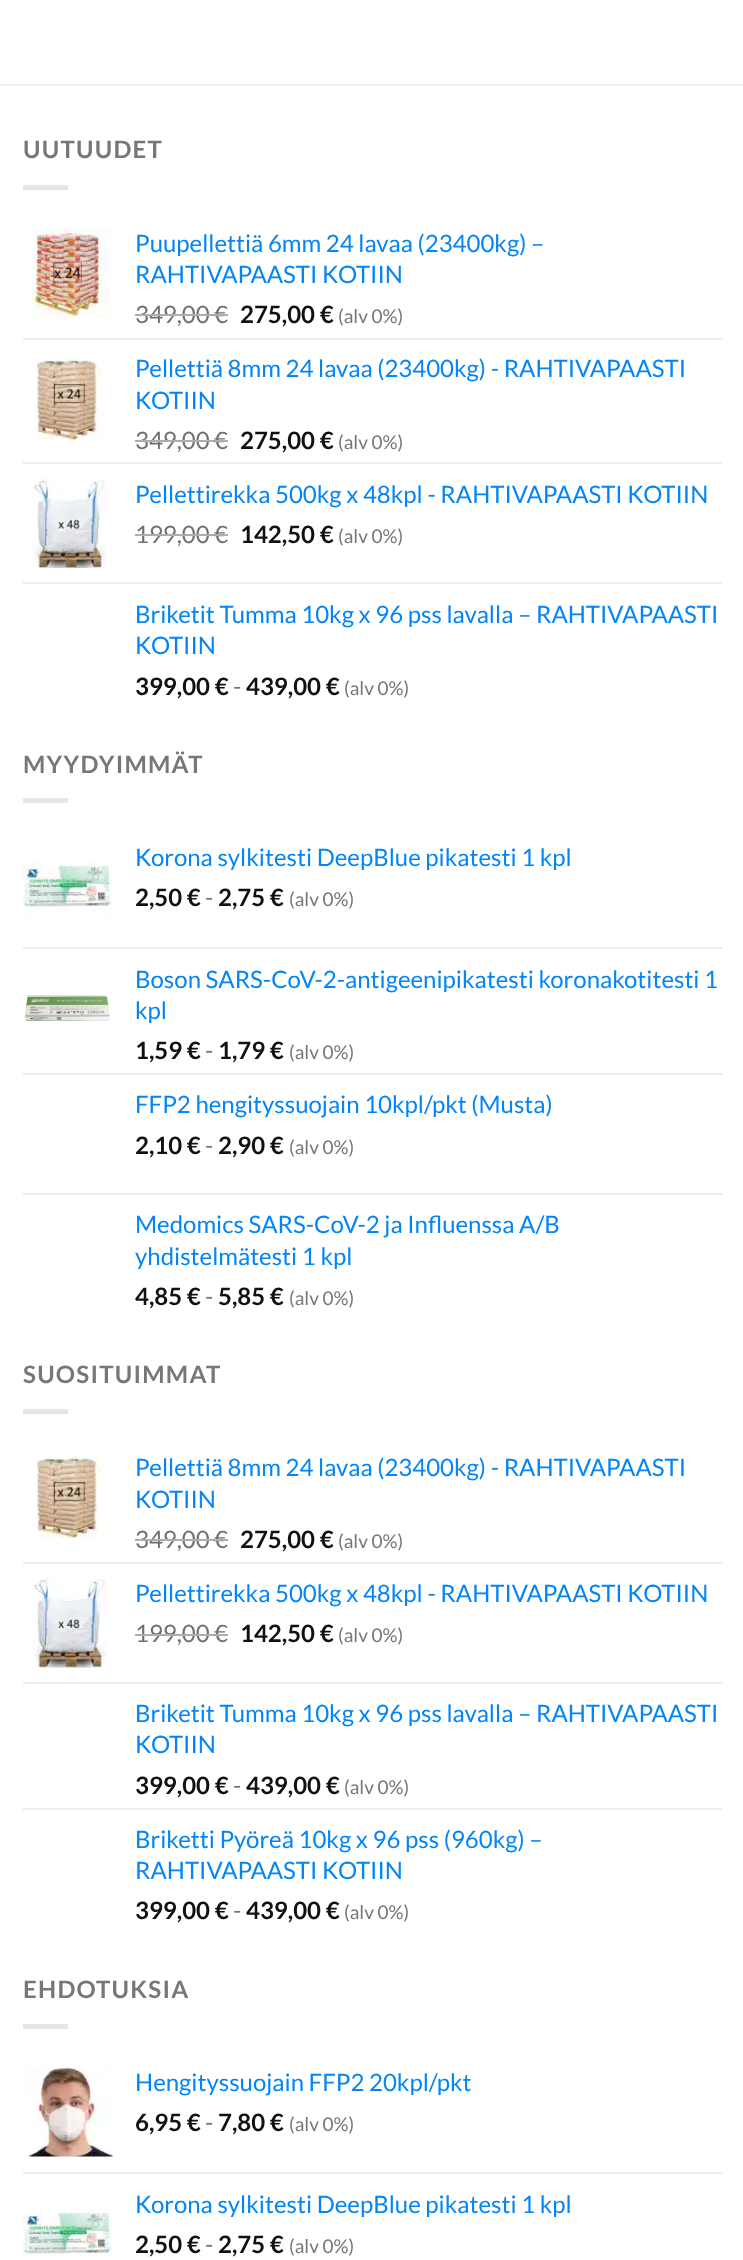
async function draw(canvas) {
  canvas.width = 743
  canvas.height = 2260
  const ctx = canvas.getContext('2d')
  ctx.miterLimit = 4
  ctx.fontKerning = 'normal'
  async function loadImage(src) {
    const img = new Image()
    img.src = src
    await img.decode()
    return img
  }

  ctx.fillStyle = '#fff'
  ctx.fillRect(0, 0, 743, 2260)
  ctx.fillStyle = '#f2f2f2'
  ctx.fillRect(0, 84, 743, 2)
  ctx.letterSpacing = '1.25px'
  ctx.font = 'bold 24px Lato'
  ctx.fillStyle = '#777'
  ctx.fillText('UUTUUDET', 23, 158)
  ctx.fillStyle = '#e6e6e6'
  ctx.fillRect(23, 185, 45, 5)
  ctx.drawImage(await loadImage('image0.png'), 31, 227, 80, 91)
  ctx.letterSpacing = '0px'
  ctx.font = '24px Lato'
  ctx.fillStyle = '#0385f6'
  ctx.fillText('Puupellettiä 6mm 24 lavaa (23400kg) –', 135, 252)
  ctx.fillText('RAHTIVAPAASTI KOTIIN', 135, 283)
  ctx.fillStyle = '#707070'
  ctx.fillText('349,00', 135, 323)
  ctx.fillStyle = '#adadad'
  ctx.fillRect(135, 314, 80, 2)
  ctx.fillStyle = '#707070'
  ctx.fillText('€', 214, 323)
  ctx.fillStyle = '#adadad'
  ctx.fillRect(215, 314, 13, 2)
  ctx.font = 'bold 24px Lato'
  ctx.fillStyle = '#111'
  ctx.fillText('275,00 €', 240, 323)
  ctx.font = '19px Lato'
  ctx.fillStyle = '#777'
  ctx.fillText('(alv 0%)', 338, 323)
  ctx.fillStyle = '#ececec'
  ctx.fillRect(23, 338, 699, 2)
  ctx.drawImage(await loadImage('image1.png'), 34, 358, 71, 83)
  ctx.font = '24px Lato'
  ctx.fillStyle = '#0385f6'
  ctx.fillText('Pellettiä 8mm 24 lavaa (23400kg) - RAHTIVAPAASTI', 135, 377)
  ctx.fillText('KOTIIN', 135, 409)
  ctx.fillStyle = '#707070'
  ctx.fillText('349,00', 135, 449)
  ctx.fillStyle = '#adadad'
  ctx.fillRect(135, 440, 80, 2)
  ctx.fillStyle = '#707070'
  ctx.fillText('€', 214, 449)
  ctx.fillStyle = '#adadad'
  ctx.fillRect(215, 440, 13, 2)
  ctx.font = 'bold 24px Lato'
  ctx.fillStyle = '#111'
  ctx.fillText('275,00 €', 240, 449)
  ctx.font = '19px Lato'
  ctx.fillStyle = '#777'
  ctx.fillText('(alv 0%)', 338, 449)
  ctx.fillStyle = '#ececec'
  ctx.fillRect(23, 462, 699, 2)
  ctx.drawImage(await loadImage('image2.png'), 32, 479, 75, 89)
  ctx.font = '24px Lato'
  ctx.fillStyle = '#0385f6'
  ctx.fillText('Pellettirekka 500kg x 48kpl - RAHTIVAPAASTI KOTIIN', 135, 503)
  ctx.fillStyle = '#707070'
  ctx.fillText('199,00', 135, 543)
  ctx.fillStyle = '#adadad'
  ctx.fillRect(135, 534, 80, 2)
  ctx.fillStyle = '#707070'
  ctx.fillText('€', 214, 543)
  ctx.fillStyle = '#adadad'
  ctx.fillRect(215, 534, 13, 2)
  ctx.font = 'bold 24px Lato'
  ctx.fillStyle = '#111'
  ctx.fillText('142,50 €', 240, 543)
  ctx.font = '19px Lato'
  ctx.fillStyle = '#777'
  ctx.fillText('(alv 0%)', 338, 543)
  ctx.fillStyle = '#ececec'
  ctx.fillRect(23, 582, 699, 2)
  ctx.font = '24px Lato'
  ctx.fillStyle = '#0385f6'
  ctx.fillText('Briketit Tumma 10kg x 96 pss lavalla – RAHTIVAPAASTI', 135, 623)
  ctx.fillText('KOTIIN', 135, 654)
  ctx.font = 'bold 24px Lato'
  ctx.fillStyle = '#111'
  ctx.fillText('399,00 €', 135, 695)
  ctx.font = '24px Lato'
  ctx.fillStyle = '#777'
  ctx.fillText('-', 233, 695)
  ctx.font = 'bold 24px Lato'
  ctx.fillStyle = '#111'
  ctx.fillText('439,00 €', 246, 695)
  ctx.font = '19px Lato'
  ctx.fillStyle = '#777'
  ctx.fillText('(alv 0%)', 344, 695)
  ctx.letterSpacing = '1.25px'
  ctx.font = 'bold 24px Lato'
  ctx.fillText('MYYDYIMMÄT', 23, 773)
  ctx.fillStyle = '#e6e6e6'
  ctx.fillRect(23, 798, 45, 5)
  ctx.letterSpacing = '0px'
  ctx.font = '24px Lato'
  ctx.fillStyle = '#0385f6'
  ctx.fillText('Korona sylkitesti DeepBlue pikatesti 1 kpl', 135, 866)
  ctx.drawImage(await loadImage('image3.png'), 22, 862, 90, 62)
  ctx.font = 'bold 24px Lato'
  ctx.fillStyle = '#111'
  ctx.fillText('2,50 €', 135, 906)
  ctx.font = '24px Lato'
  ctx.fillStyle = '#777'
  ctx.fillText('-', 205, 906)
  ctx.font = 'bold 24px Lato'
  ctx.fillStyle = '#111'
  ctx.fillText('2,75 €', 218, 906)
  ctx.font = '19px Lato'
  ctx.fillStyle = '#777'
  ctx.fillText('(alv 0%)', 289, 906)
  ctx.fillStyle = '#ececec'
  ctx.fillRect(23, 947, 699, 2)
  ctx.font = '24px Lato'
  ctx.fillStyle = '#0385f6'
  ctx.fillText('Boson SARS-CoV-2-antigeenipikatesti koronakotitesti 1', 135, 988)
  ctx.drawImage(await loadImage('image4.png'), 24, 995, 87, 26)
  ctx.fillText('kpl', 135, 1019)
  ctx.font = 'bold 24px Lato'
  ctx.fillStyle = '#111'
  ctx.fillText('1,59 €', 135, 1059)
  ctx.font = '24px Lato'
  ctx.fillStyle = '#777'
  ctx.fillText('-', 205, 1059)
  ctx.font = 'bold 24px Lato'
  ctx.fillStyle = '#111'
  ctx.fillText('1,79 €', 218, 1059)
  ctx.font = '19px Lato'
  ctx.fillStyle = '#777'
  ctx.fillText('(alv 0%)', 289, 1059)
  ctx.fillStyle = '#ececec'
  ctx.fillRect(23, 1073, 699, 2)
  ctx.font = '24px Lato'
  ctx.fillStyle = '#0385f6'
  ctx.fillText('FFP2 hengityssuojain 10kpl/pkt (Musta)', 135, 1113)
  ctx.font = 'bold 24px Lato'
  ctx.fillStyle = '#111'
  ctx.fillText('2,10 €', 135, 1154)
  ctx.font = '24px Lato'
  ctx.fillStyle = '#777'
  ctx.fillText('-', 205, 1154)
  ctx.font = 'bold 24px Lato'
  ctx.fillStyle = '#111'
  ctx.fillText('2,90 €', 218, 1154)
  ctx.font = '19px Lato'
  ctx.fillStyle = '#777'
  ctx.fillText('(alv 0%)', 289, 1154)
  ctx.fillStyle = '#ececec'
  ctx.fillRect(23, 1193, 699, 2)
  ctx.font = '24px Lato'
  ctx.fillStyle = '#0385f6'
  ctx.fillText('Medomics SARS-CoV-2 ja Influenssa A/B', 135, 1233)
  ctx.fillText('yhdistelmätesti 1 kpl', 135, 1265)
  ctx.font = 'bold 24px Lato'
  ctx.fillStyle = '#111'
  ctx.fillText('4,85 €', 135, 1305)
  ctx.font = '24px Lato'
  ctx.fillStyle = '#777'
  ctx.fillText('-', 205, 1305)
  ctx.font = 'bold 24px Lato'
  ctx.fillStyle = '#111'
  ctx.fillText('5,85 €', 218, 1305)
  ctx.font = '19px Lato'
  ctx.fillStyle = '#777'
  ctx.fillText('(alv 0%)', 289, 1305)
  ctx.letterSpacing = '1.25px'
  ctx.font = 'bold 24px Lato'
  ctx.fillText('SUOSITUIMMAT', 23, 1383)
  ctx.fillStyle = '#e6e6e6'
  ctx.fillRect(23, 1409, 45, 5)
  ctx.drawImage(await loadImage('image5.png'), 34, 1456, 71, 83)
  ctx.letterSpacing = '0px'
  ctx.font = '24px Lato'
  ctx.fillStyle = '#0385f6'
  ctx.fillText('Pellettiä 8mm 24 lavaa (23400kg) - RAHTIVAPAASTI', 135, 1476)
  ctx.fillText('KOTIIN', 135, 1508)
  ctx.fillStyle = '#707070'
  ctx.fillText('349,00', 135, 1548)
  ctx.fillStyle = '#adadad'
  ctx.fillRect(135, 1539, 80, 2)
  ctx.fillStyle = '#707070'
  ctx.fillText('€', 214, 1548)
  ctx.fillStyle = '#adadad'
  ctx.fillRect(215, 1539, 13, 2)
  ctx.font = 'bold 24px Lato'
  ctx.fillStyle = '#111'
  ctx.fillText('275,00 €', 240, 1548)
  ctx.font = '19px Lato'
  ctx.fillStyle = '#777'
  ctx.fillText('(alv 0%)', 338, 1548)
  ctx.fillStyle = '#ececec'
  ctx.fillRect(23, 1562, 699, 2)
  ctx.drawImage(await loadImage('image6.png'), 32, 1578, 76, 90)
  ctx.font = '24px Lato'
  ctx.fillStyle = '#0385f6'
  ctx.fillText('Pellettirekka 500kg x 48kpl - RAHTIVAPAASTI KOTIIN', 135, 1602)
  ctx.fillStyle = '#707070'
  ctx.fillText('199,00', 135, 1642)
  ctx.fillStyle = '#adadad'
  ctx.fillRect(135, 1634, 80, 2)
  ctx.fillStyle = '#707070'
  ctx.fillText('€', 214, 1642)
  ctx.fillStyle = '#adadad'
  ctx.fillRect(215, 1634, 13, 2)
  ctx.font = 'bold 24px Lato'
  ctx.fillStyle = '#111'
  ctx.fillText('142,50 €', 240, 1642)
  ctx.font = '19px Lato'
  ctx.fillStyle = '#777'
  ctx.fillText('(alv 0%)', 338, 1642)
  ctx.fillStyle = '#ececec'
  ctx.fillRect(23, 1682, 699, 2)
  ctx.font = '24px Lato'
  ctx.fillStyle = '#0385f6'
  ctx.fillText('Briketit Tumma 10kg x 96 pss lavalla – RAHTIVAPAASTI', 135, 1722)
  ctx.fillText('KOTIIN', 135, 1753)
  ctx.font = 'bold 24px Lato'
  ctx.fillStyle = '#111'
  ctx.fillText('399,00 €', 135, 1794)
  ctx.font = '24px Lato'
  ctx.fillStyle = '#777'
  ctx.fillText('-', 233, 1794)
  ctx.font = 'bold 24px Lato'
  ctx.fillStyle = '#111'
  ctx.fillText('439,00 €', 246, 1794)
  ctx.font = '19px Lato'
  ctx.fillStyle = '#777'
  ctx.fillText('(alv 0%)', 344, 1794)
  ctx.fillStyle = '#ececec'
  ctx.fillRect(23, 1808, 699, 2)
  ctx.font = '24px Lato'
  ctx.fillStyle = '#0385f6'
  ctx.fillText('Briketti Pyöreä 10kg x 96 pss (960kg) –', 135, 1848)
  ctx.fillText('RAHTIVAPAASTI KOTIIN', 135, 1879)
  ctx.font = 'bold 24px Lato'
  ctx.fillStyle = '#111'
  ctx.fillText('399,00 €', 135, 1919)
  ctx.font = '24px Lato'
  ctx.fillStyle = '#777'
  ctx.fillText('-', 233, 1919)
  ctx.font = 'bold 24px Lato'
  ctx.fillStyle = '#111'
  ctx.fillText('439,00 €', 246, 1919)
  ctx.font = '19px Lato'
  ctx.fillStyle = '#777'
  ctx.fillText('(alv 0%)', 344, 1919)
  ctx.letterSpacing = '1.25px'
  ctx.font = 'bold 24px Lato'
  ctx.fillText('EHDOTUKSIA', 23, 1998)
  ctx.fillStyle = '#e6e6e6'
  ctx.fillRect(23, 2024, 45, 5)
  ctx.drawImage(await loadImage('image7.png'), 26, 2066, 87, 91)
  ctx.letterSpacing = '0px'
  ctx.font = '24px Lato'
  ctx.fillStyle = '#0385f6'
  ctx.fillText('Hengityssuojain FFP2 20kpl/pkt', 135, 2091)
  ctx.font = 'bold 24px Lato'
  ctx.fillStyle = '#111'
  ctx.fillText('6,95 €', 135, 2131)
  ctx.font = '24px Lato'
  ctx.fillStyle = '#777'
  ctx.fillText('-', 205, 2131)
  ctx.font = 'bold 24px Lato'
  ctx.fillStyle = '#111'
  ctx.fillText('7,80 €', 218, 2131)
  ctx.font = '19px Lato'
  ctx.fillStyle = '#777'
  ctx.fillText('(alv 0%)', 289, 2131)
  ctx.fillStyle = '#ececec'
  ctx.fillRect(23, 2172, 699, 2)
  ctx.font = '24px Lato'
  ctx.fillStyle = '#0385f6'
  ctx.fillText('Korona sylkitesti DeepBlue pikatesti 1 kpl', 135, 2213)
  ctx.drawImage(await loadImage('image8.png'), 22, 2209, 90, 48)
  ctx.font = 'bold 24px Lato'
  ctx.fillStyle = '#111'
  ctx.fillText('2,50 €', 135, 2253)
  ctx.font = '24px Lato'
  ctx.fillStyle = '#777'
  ctx.fillText('-', 205, 2253)
  ctx.font = 'bold 24px Lato'
  ctx.fillStyle = '#111'
  ctx.fillText('2,75 €', 218, 2253)
  ctx.font = '19px Lato'
  ctx.fillStyle = '#777'
  ctx.fillText('(alv 0%)', 289, 2253)
}

draw(document.querySelector('canvas'))
